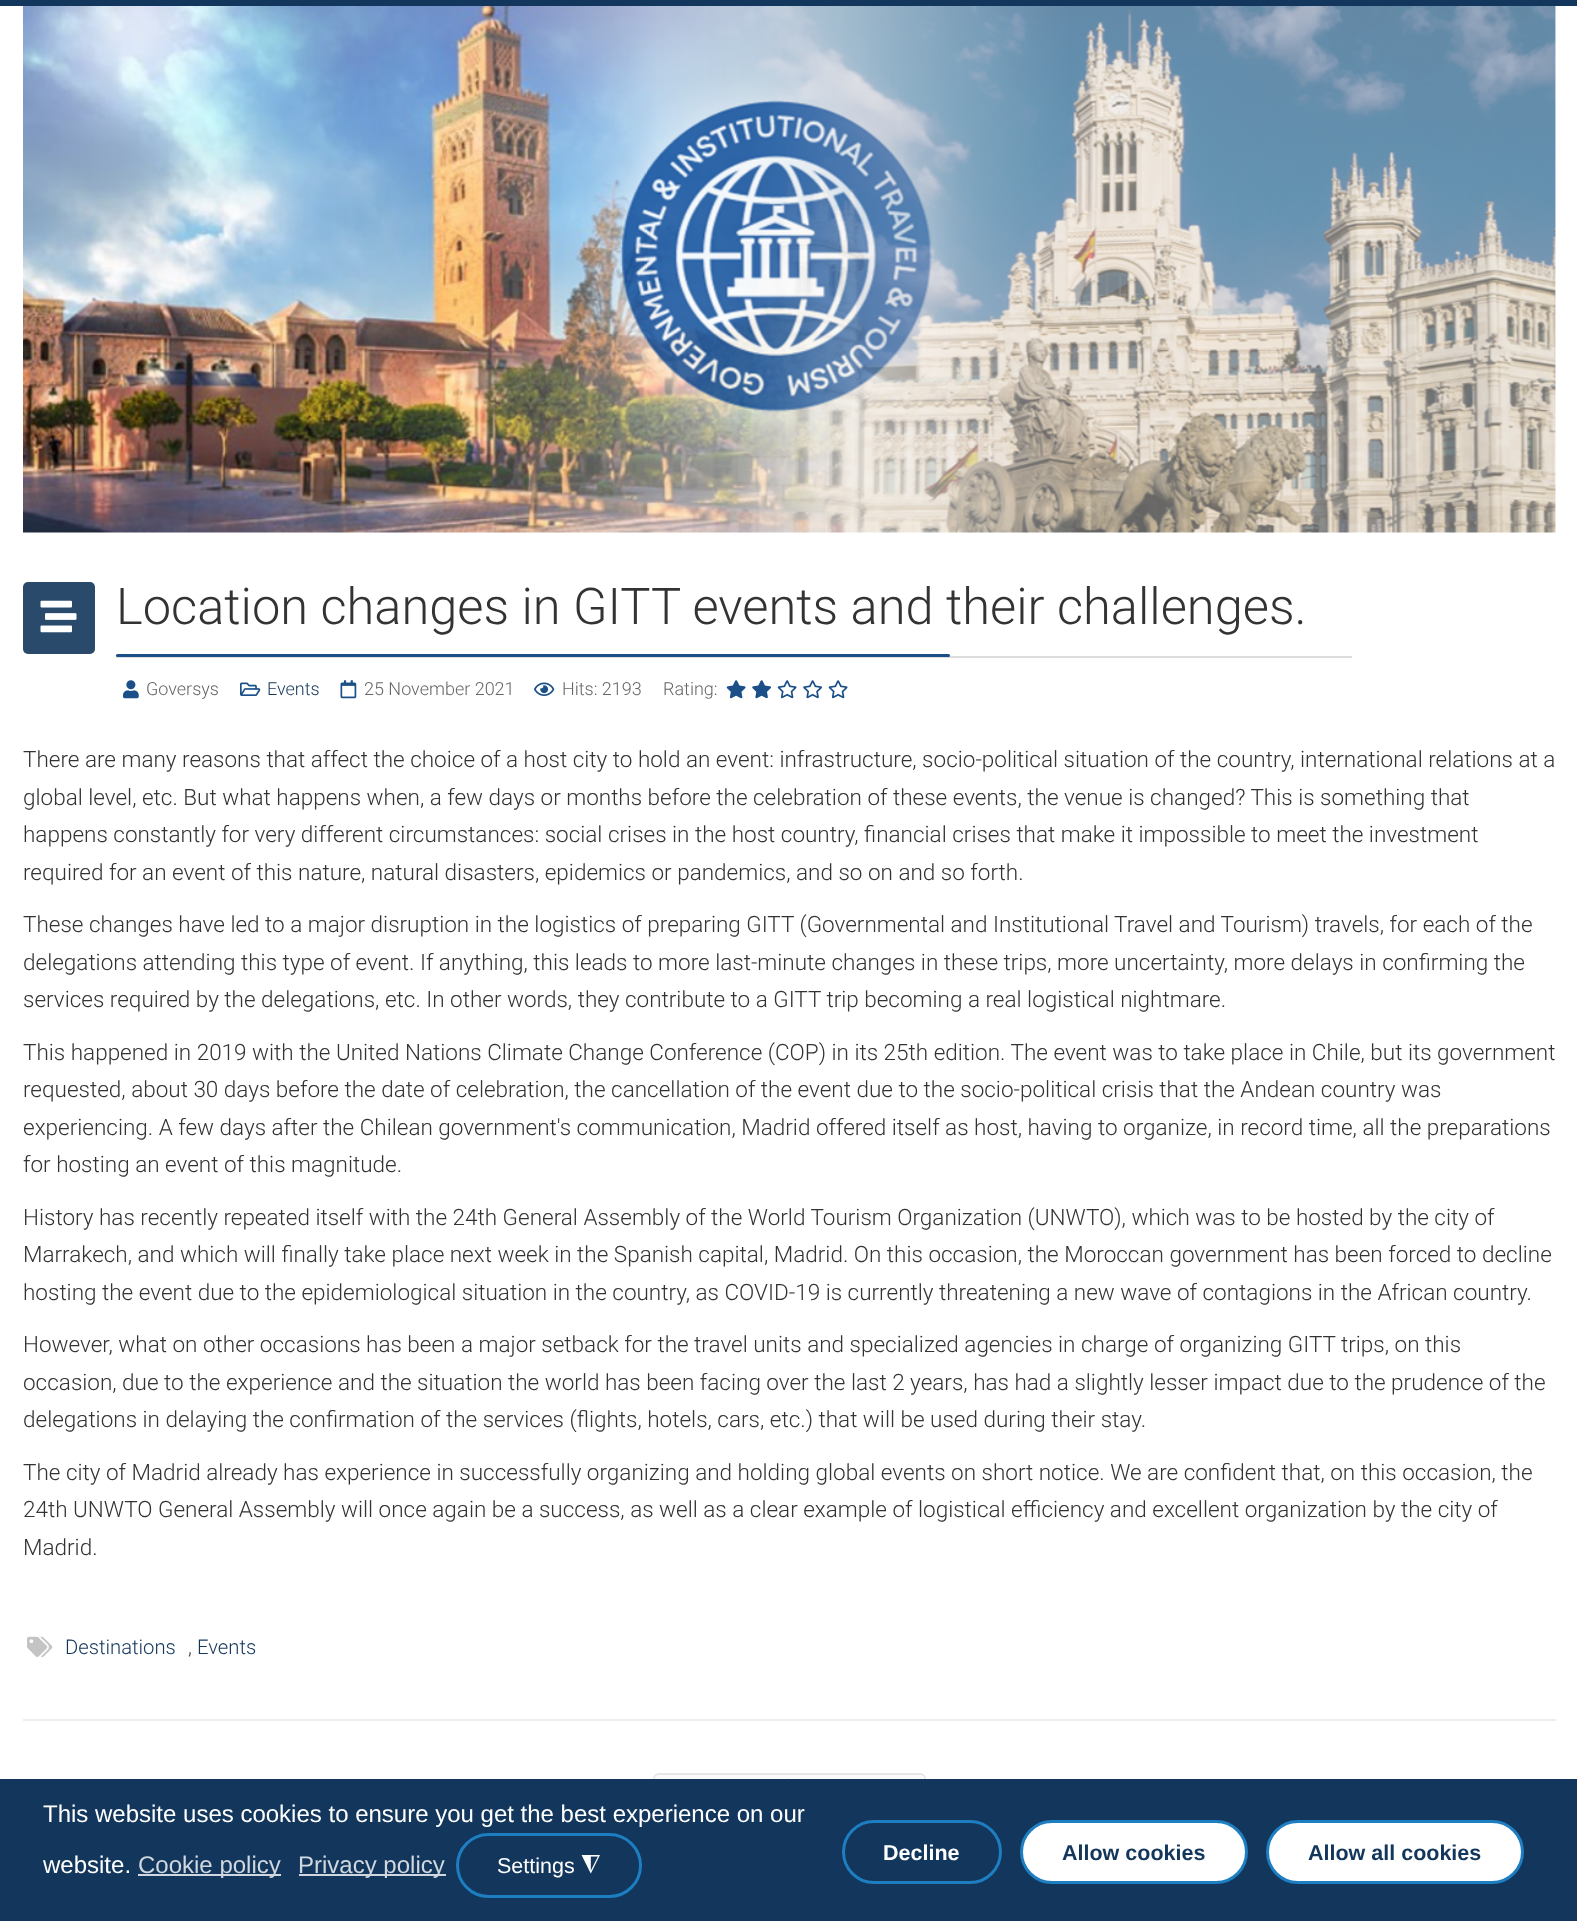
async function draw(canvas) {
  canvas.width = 1577
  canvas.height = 1921
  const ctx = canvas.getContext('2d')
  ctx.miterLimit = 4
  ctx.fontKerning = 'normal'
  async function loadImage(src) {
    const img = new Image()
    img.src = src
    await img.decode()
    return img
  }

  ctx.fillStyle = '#fff'
  ctx.fillRect(0, 0, 1577, 1921)
  ctx.fillStyle = '#12365c'
  ctx.fillRect(0, 0, 1577, 6)
  ctx.drawImage(await loadImage('image0.png'), 23, 6, 1533, 527)
  ctx.fillStyle = '#2a4a6c'
  ctx.beginPath()
  ctx.roundRect(23, 582, 72, 72, 5)
  ctx.fill()
  ctx.drawImage(await loadImage('image1.png'), 40, 600, 37, 33)
  ctx.fillStyle = '#ddd'
  ctx.fillRect(116, 656, 1236, 2)
  ctx.font = '300 50.6px Roboto'
  ctx.fillStyle = '#333'
  ctx.fillText('Location changes in GITT events and their challenges.', 116, 624)
  ctx.fillStyle = '#1a4f87'
  ctx.beginPath()
  ctx.roundRect(116, 654, 834, 3, 1.5)
  ctx.fill()
  ctx.drawImage(await loadImage('image2.png'), 123, 680, 16, 19)
  ctx.font = '300 18px Roboto'
  ctx.fillStyle = '#666'
  ctx.fillText('Goversys', 146, 695)
  ctx.drawImage(await loadImage('image3.png'), 240, 682, 21, 14)
  ctx.fillStyle = '#12365c'
  ctx.fillText('Events', 267, 695)
  ctx.drawImage(await loadImage('image4.png'), 340, 680, 17, 19)
  ctx.fillStyle = '#666'
  ctx.fillText('25 November 2021', 364, 695)
  ctx.drawImage(await loadImage('image5.png'), 534, 682, 21, 14)
  ctx.fillText('Hits: 2193', 562, 695)
  ctx.fillText('Rating:', 663, 695)
  ctx.drawImage(await loadImage('image6.png'), 726, 680, 20, 19)
  ctx.drawImage(await loadImage('image7.png'), 752, 680, 19, 19)
  ctx.drawImage(await loadImage('image8.png'), 777, 680, 20, 19)
  ctx.drawImage(await loadImage('image9.png'), 803, 680, 19, 19)
  ctx.drawImage(await loadImage('image8.png'), 828, 680, 20, 19)
  ctx.font = '300 22.5px Roboto'
  ctx.fillStyle = '#333'
  ctx.fillText('There are many reasons that affect the choice of a host city to hold an event: infrastructure, socio-political situation of the country, international relations at a', 23, 767)
  ctx.fillText('global level, etc. But what happens when, a few days or months before the celebration of these events, the venue is changed? This is something that', 23, 805)
  ctx.fillText('happens constantly for very different circumstances: social crises in the host country, financial crises that make it impossible to meet the investment', 23, 842)
  ctx.fillText('required for an event of this nature, natural disasters, epidemics or pandemics, and so on and so forth.', 23, 880)
  ctx.fillText('These changes have led to a major disruption in the logistics of preparing GITT (Governmental and Institutional Travel and Tourism) travels, for each of the', 23, 932)
  ctx.fillText('delegations attending this type of event. If anything, this leads to more last-minute changes in these trips, more uncertainty, more delays in confirming the', 23, 970)
  ctx.fillText('services required by the delegations, etc. In other words, they contribute to a GITT trip becoming a real logistical nightmare.', 23, 1007)
  ctx.fillText('This happened in 2019 with the United Nations Climate Change Conference (COP) in its 25th edition. The event was to take place in Chile, but its government', 23, 1060)
  ctx.fillText('requested, about 30 days before the date of celebration, the cancellation of the event due to the socio-political crisis that the Andean country was', 23, 1097)
  ctx.fillText('experiencing. A few days after the Chilean government\'s communication, Madrid offered itself as host, having to organize, in record time, all the preparations', 23, 1135)
  ctx.fillText('for hosting an event of this magnitude.', 23, 1172)
  ctx.fillText('History has recently repeated itself with the 24th General Assembly of the World Tourism Organization (UNWTO), which was to be hosted by the city of', 23, 1225)
  ctx.fillText('Marrakech, and which will finally take place next week in the Spanish capital, Madrid. On this occasion, the Moroccan government has been forced to decline', 23, 1262)
  ctx.fillText('hosting the event due to the epidemiological situation in the country, as COVID-19 is currently threatening a new wave of contagions in the African country.', 23, 1300)
  ctx.fillText('However, what on other occasions has been a major setback for the travel units and specialized agencies in charge of organizing GITT trips, on this', 23, 1352)
  ctx.fillText('occasion, due to the experience and the situation the world has been facing over the last 2 years, has had a slightly lesser impact due to the prudence of the', 23, 1390)
  ctx.fillText('delegations in delaying the confirmation of the services (flights, hotels, cars, etc.) that will be used during their stay.', 23, 1427)
  ctx.fillText('The city of Madrid already has experience in successfully organizing and holding global events on short notice. We are confident that, on this occasion, the', 23, 1480)
  ctx.fillText('24th UNWTO General Assembly will once again be a success, as well as a clear example of logistical efficiency and excellent organization by the city of', 23, 1517)
  ctx.fillText('Madrid.', 23, 1555)
  ctx.drawImage(await loadImage('image10.png'), 27, 1636, 26, 21)
  ctx.font = '300 20.25px Roboto'
  ctx.fillStyle = '#12365c'
  ctx.fillText('Destinations', 65, 1654)
  ctx.fillStyle = '#333'
  ctx.fillText(',', 188, 1654)
  ctx.fillStyle = '#12365c'
  ctx.fillText('Events', 197, 1654)
  ctx.fillStyle = '#eee'
  ctx.fillRect(23, 1719, 1533, 2)
  ctx.beginPath()
  ctx.roundRect(654, 1774, 271, 76, 5)
  ctx.strokeStyle = '#e6e6e6'
  ctx.lineWidth = 2
  ctx.stroke()
  ctx.fillStyle = '#e6e6e6'
  ctx.fillRect(788, 1778, 1, 1)
  ctx.fillStyle = '#fafafa'
  ctx.beginPath()
  ctx.roundRect(654, 1775, 134, 75, [6, 0, 0, 6])
  ctx.fill()
  ctx.beginPath()
  ctx.roundRect(789, 1775, 135, 75, [0, 6, 6, 0])
  ctx.fill()
  ctx.fillStyle = '#12365c'
  ctx.fillRect(0, 1779, 1577, 142)
  ctx.font = '24px Liberation Sans'
  ctx.fillStyle = '#fff'
  ctx.fillText('This website uses cookies to ensure you get the best experience on our', 43, 1822)
  ctx.fillText('website.', 43, 1873)
  ctx.fillStyle = '#d0d7de'
  ctx.fillRect(138, 1874, 143, 2)
  ctx.fillText('Cookie policy', 138, 1873)
  ctx.fillRect(299, 1874, 147, 2)
  ctx.fillText('Privacy policy', 298, 1873)
  ctx.beginPath()
  ctx.roundRect(457.5, 1834.5, 183, 62, 31)
  ctx.strokeStyle = '#1e7ec2'
  ctx.lineWidth = 3
  ctx.stroke()
  ctx.font = '21.5px Liberation Sans'
  ctx.fillStyle = '#fff'
  ctx.fillText('Settings', 497, 1873)
  ctx.font = '24px DejaVu Sans'
  ctx.save()
  ctx.translate(600, 1858)
  ctx.rotate(180 * Math.PI / 180)
  ctx.fillText('◮', 0, 0)
  ctx.restore()
  ctx.beginPath()
  ctx.roundRect(843.5, 1821.5, 157, 61, 30.5)
  ctx.stroke()
  ctx.font = 'bold 21.5px Liberation Sans'
  ctx.fillText('Decline', 883, 1860)
  ctx.beginPath()
  ctx.roundRect(1021.5, 1821.5, 225, 61, 30.5)
  ctx.fill()
  ctx.stroke()
  ctx.fillStyle = '#12365c'
  ctx.fillText('Allow cookies', 1062, 1860)
  ctx.fillStyle = '#fff'
  ctx.beginPath()
  ctx.roundRect(1267.5, 1821.5, 255, 61, 30.5)
  ctx.fill()
  ctx.stroke()
  ctx.fillStyle = '#12365c'
  ctx.fillText('Allow all cookies', 1308, 1860)
}

draw(document.querySelector('canvas'))
